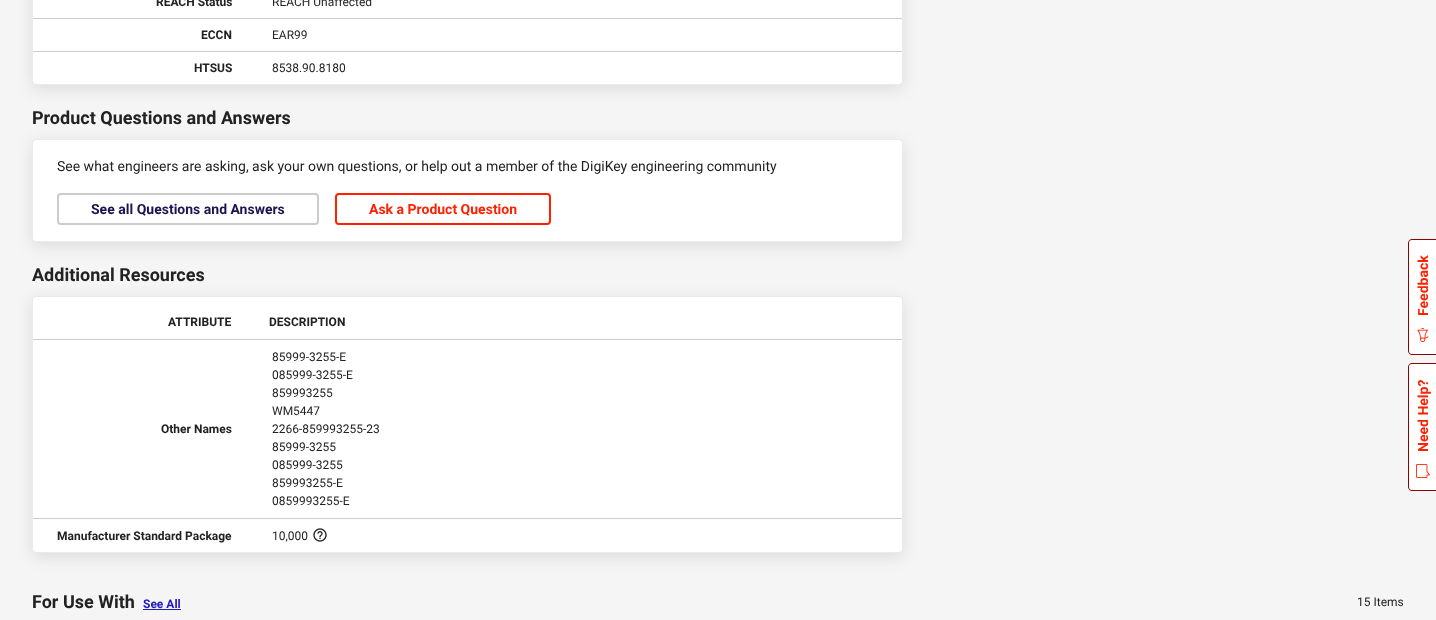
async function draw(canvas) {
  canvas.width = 1436
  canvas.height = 620
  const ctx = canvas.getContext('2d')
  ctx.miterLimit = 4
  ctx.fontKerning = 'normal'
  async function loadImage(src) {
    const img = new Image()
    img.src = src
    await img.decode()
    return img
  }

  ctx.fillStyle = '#f5f5f5'
  ctx.fillRect(0, 0, 1436, 620)
  ctx.fillStyle = '#0000001a'
  ctx.filter = 'blur(8px)'
  ctx.beginPath()
  ctx.roundRect(32, -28, 871, 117, 4)
  ctx.fill()
  ctx.filter = 'none'
  ctx.fillStyle = '#fff'
  ctx.beginPath()
  ctx.roundRect(32.5, -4.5, 870, 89, 3.5)
  ctx.fill()
  ctx.strokeStyle = '#eaeaea'
  ctx.stroke()
  ctx.fillStyle = '#ccc'
  ctx.fillRect(33, 18, 869, 1)
  ctx.font = 'bold 12px Roboto'
  ctx.fillStyle = '#222'
  ctx.fillText('REACH Status', 156, 6)
  ctx.font = '12px Roboto'
  ctx.fillText('REACH Unaffected', 272, 6)
  ctx.fillStyle = '#ccc'
  ctx.fillRect(33, 51, 869, 1)
  ctx.font = 'bold 12px Roboto'
  ctx.fillStyle = '#222'
  ctx.fillText('ECCN', 201, 39)
  ctx.font = '12px Roboto'
  ctx.fillText('EAR99', 272, 39)
  ctx.font = 'bold 12px Roboto'
  ctx.fillText('HTSUS', 194, 72)
  ctx.font = '12px Roboto'
  ctx.fillText('8538.90.8180', 272, 72)
  ctx.fillStyle = '#0000001a'
  ctx.filter = 'blur(8px)'
  ctx.beginPath()
  ctx.roundRect(32, 143, 871, 103, 4)
  ctx.fill()
  ctx.filter = 'none'
  ctx.font = 'bold 18px Roboto'
  ctx.fillStyle = '#222'
  ctx.fillText('Product Questions and Answers', 32, 124)
  ctx.fillStyle = '#fff'
  ctx.beginPath()
  ctx.roundRect(32.5, 139.5, 870, 102, 3.5)
  ctx.fill()
  ctx.stroke()
  ctx.font = '14px Roboto'
  ctx.fillStyle = '#222'
  ctx.fillText('See what engineers are asking, ask your own questions, or help out a member of the DigiKey engineering community', 57, 171)
  ctx.beginPath()
  ctx.roundRect(58, 194, 260, 30, 3)
  ctx.strokeStyle = '#ccc'
  ctx.lineWidth = 2
  ctx.stroke()
  ctx.font = 'bold 14px Roboto'
  ctx.fillStyle = '#1a1552'
  ctx.fillText('See all Questions and Answers', 91, 214)
  ctx.beginPath()
  ctx.roundRect(336, 194, 214, 30, 3)
  ctx.strokeStyle = '#ff2100'
  ctx.stroke()
  ctx.fillStyle = '#ff2100'
  ctx.fillText('Ask a Product Question', 369, 214)
  ctx.fillStyle = '#0000001a'
  ctx.filter = 'blur(8px)'
  ctx.beginPath()
  ctx.roundRect(32, 300, 871, 257, 4)
  ctx.fill()
  ctx.filter = 'none'
  ctx.font = 'bold 18px Roboto'
  ctx.fillStyle = '#222'
  ctx.fillText('Additional Resources', 32, 281)
  ctx.fillStyle = '#fff'
  ctx.beginPath()
  ctx.roundRect(32.5, 296.5, 870, 256, 3.5)
  ctx.fill()
  ctx.strokeStyle = '#eaeaea'
  ctx.lineWidth = 1
  ctx.stroke()
  ctx.font = 'bold 12px Roboto'
  ctx.fillStyle = '#222'
  ctx.fillText('ATTRIBUTE', 168, 326)
  ctx.fillStyle = '#ccc'
  ctx.fillRect(33, 339, 869, 1)
  ctx.fillStyle = '#222'
  ctx.fillText('DESCRIPTION', 269, 326)
  ctx.fillStyle = '#ccc'
  ctx.fillRect(33, 518, 869, 1)
  ctx.fillStyle = '#222'
  ctx.fillText('Other Names', 161, 433)
  ctx.font = '12px Roboto'
  ctx.fillText('85999-3255-E', 272, 361)
  ctx.fillText('085999-3255-E', 272, 379)
  ctx.fillText('859993255', 272, 397)
  ctx.fillText('WM5447', 272, 415)
  ctx.fillText('2266-859993255-23', 272, 433)
  ctx.fillText('85999-3255', 272, 451)
  ctx.fillText('085999-3255', 272, 469)
  ctx.fillText('859993255-E', 272, 487)
  ctx.fillText('0859993255-E', 272, 505)
  ctx.font = 'bold 12px Roboto'
  ctx.fillText('Manufacturer Standard Package', 57, 540)
  ctx.font = '12px Roboto'
  ctx.fillText('10,000', 272, 540)
  ctx.drawImage(await loadImage('image0.png'), 313, 528, 14, 14)
  ctx.font = 'bold 18px Roboto'
  ctx.fillText('For Use With', 32, 608)
  ctx.font = 'bold 12px Roboto'
  ctx.fillStyle = '#221abb'
  ctx.fillText('See All', 143, 608)
  ctx.fillRect(143, 609, 38, 1)
  ctx.font = '12px Roboto'
  ctx.fillStyle = '#222'
  ctx.fillText('15 Items', 1357, 606)
  ctx.fillStyle = '#fff'
  ctx.beginPath()
  ctx.moveTo(1408, 351)
  ctx.lineTo(1408, 243)
  ctx.bezierCurveTo(1408, 241, 1410, 239, 1412, 239)
  ctx.lineTo(1436, 239)
  ctx.lineTo(1436, 355)
  ctx.lineTo(1412, 355)
  ctx.bezierCurveTo(1410, 355, 1408, 353, 1408, 351)
  ctx.closePath()
  ctx.fill()
  ctx.fillStyle = '#8b0000'
  ctx.beginPath()
  ctx.moveTo(1408, 351)
  ctx.lineTo(1408, 243)
  ctx.bezierCurveTo(1408, 241, 1410, 239, 1412, 239)
  ctx.lineTo(1436, 239)
  ctx.lineTo(1436, 355)
  ctx.lineTo(1412, 355)
  ctx.bezierCurveTo(1410, 355, 1408, 353, 1408, 351)
  ctx.closePath()
  ctx.moveTo(1409, 351)
  ctx.lineTo(1409, 243)
  ctx.bezierCurveTo(1409, 241, 1410, 240, 1412, 240)
  ctx.lineTo(1436, 240)
  ctx.lineTo(1436, 354)
  ctx.lineTo(1412, 354)
  ctx.bezierCurveTo(1410, 354, 1409, 353, 1409, 351)
  ctx.closePath()
  ctx.fill('evenodd')
  ctx.font = 'bold 14px Roboto'
  ctx.fillStyle = '#ff2100'
  ctx.save()
  ctx.translate(1428, 316)
  ctx.rotate(-90 * Math.PI / 180)
  ctx.fillText('Feedback', 0, 0)
  ctx.restore()
  ctx.drawImage(await loadImage('image1.png'), 1417, 328, 12, 14)
  ctx.fillStyle = '#fff'
  ctx.beginPath()
  ctx.moveTo(1408, 487)
  ctx.lineTo(1408, 367)
  ctx.bezierCurveTo(1408, 365, 1410, 363, 1412, 363)
  ctx.lineTo(1436, 363)
  ctx.lineTo(1436, 491)
  ctx.lineTo(1412, 491)
  ctx.bezierCurveTo(1410, 491, 1408, 489, 1408, 487)
  ctx.closePath()
  ctx.fill()
  ctx.fillStyle = '#8b0000'
  ctx.beginPath()
  ctx.moveTo(1408, 487)
  ctx.lineTo(1408, 367)
  ctx.bezierCurveTo(1408, 365, 1410, 363, 1412, 363)
  ctx.lineTo(1436, 363)
  ctx.lineTo(1436, 491)
  ctx.lineTo(1412, 491)
  ctx.bezierCurveTo(1410, 491, 1408, 489, 1408, 487)
  ctx.closePath()
  ctx.moveTo(1409, 487)
  ctx.lineTo(1409, 367)
  ctx.bezierCurveTo(1409, 365, 1410, 364, 1412, 364)
  ctx.lineTo(1436, 364)
  ctx.lineTo(1436, 490)
  ctx.lineTo(1412, 490)
  ctx.bezierCurveTo(1410, 490, 1409, 489, 1409, 487)
  ctx.closePath()
  ctx.fill('evenodd')
  ctx.fillStyle = '#ff2100'
  ctx.save()
  ctx.translate(1428, 452)
  ctx.rotate(-90 * Math.PI / 180)
  ctx.fillText('Need Help?', 0, 0)
  ctx.restore()
  ctx.drawImage(await loadImage('image2.png'), 1416, 464, 14, 14)
}

draw(document.querySelector('canvas'))
